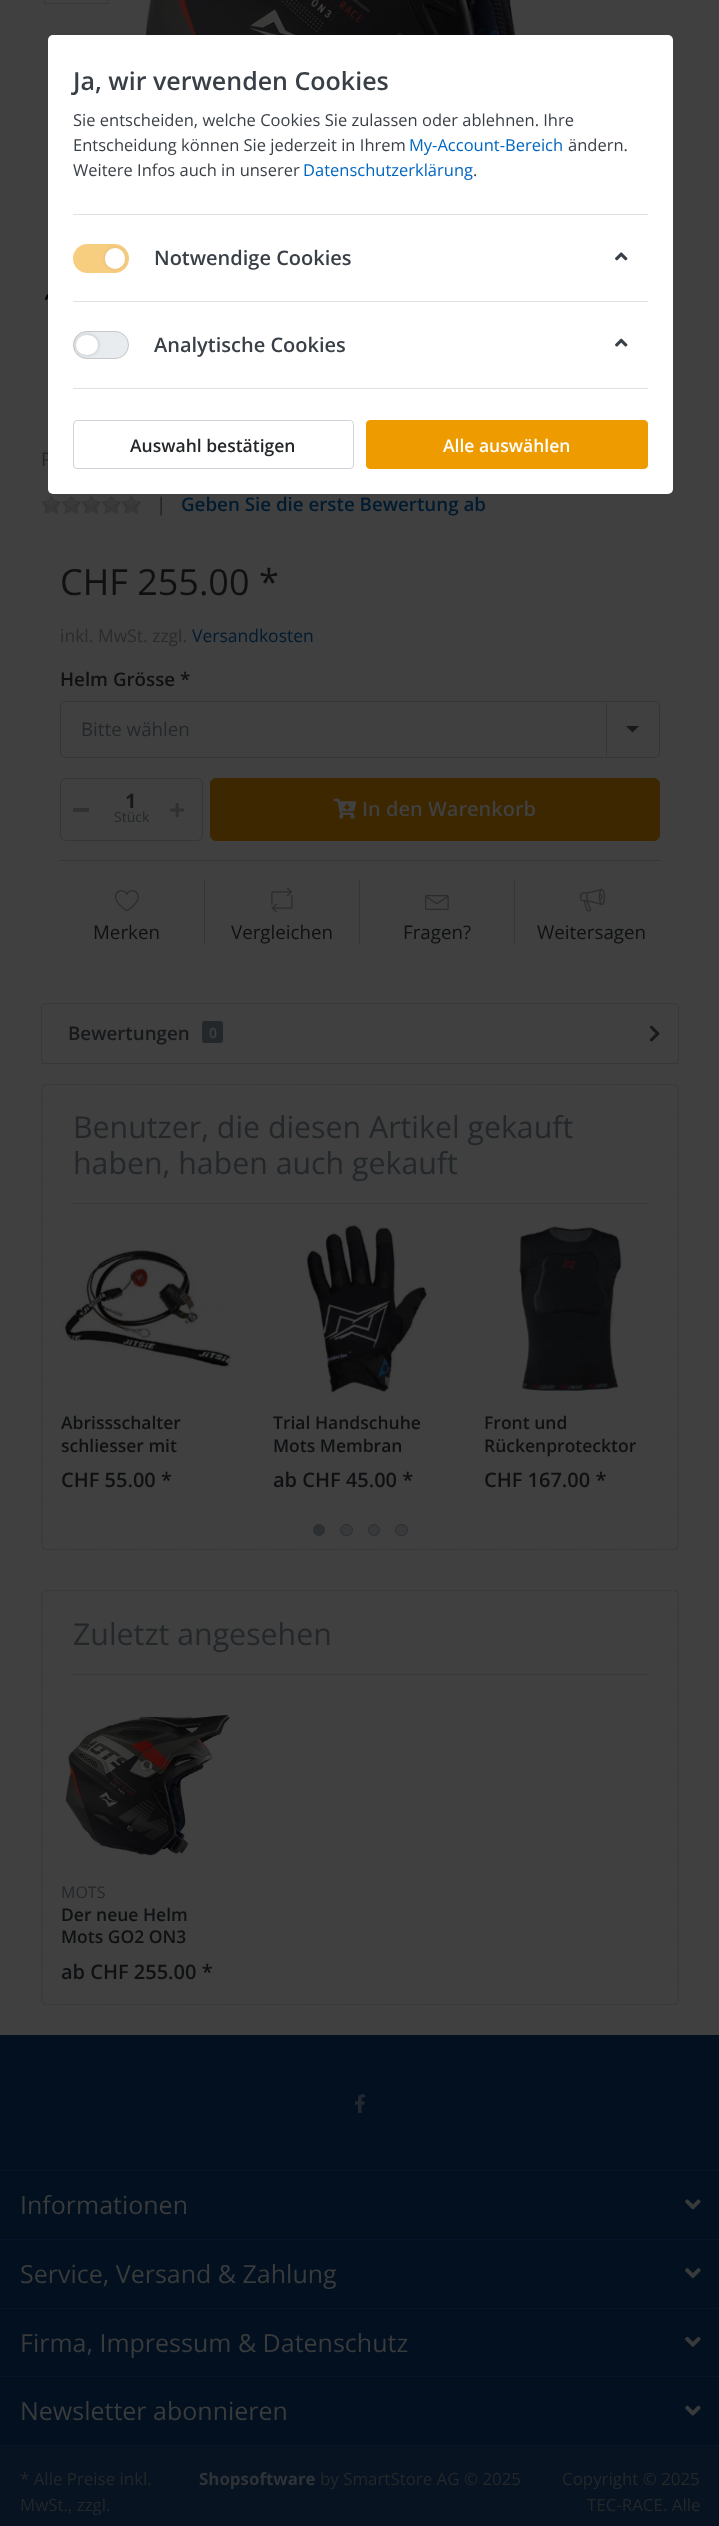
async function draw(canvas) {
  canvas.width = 719
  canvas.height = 2526
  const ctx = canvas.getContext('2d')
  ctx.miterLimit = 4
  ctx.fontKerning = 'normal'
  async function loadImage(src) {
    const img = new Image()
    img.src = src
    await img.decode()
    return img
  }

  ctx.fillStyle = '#404040'
  ctx.fillRect(0, 0, 719, 2526)
  ctx.font = '18.75px Open Sans'
  ctx.fillStyle = '#23272a'
  ctx.fillText('P', 41, 466)
  ctx.fillStyle = '#fff'
  ctx.beginPath()
  ctx.roundRect(48, 35, 625, 459, 5)
  ctx.fill()
  ctx.font = '600 25px Open Sans'
  ctx.fillStyle = '#393f46'
  ctx.fillText('Ja, wir verwenden Cookies', 73, 90)
  ctx.font = '16.5px Open Sans'
  ctx.fillText('Sie entscheiden, welche Cookies Sie zulassen oder ablehnen. Ihre', 73, 126)
  ctx.fillText('Entscheidung können Sie jederzeit in Ihrem', 73, 151)
  ctx.fillStyle = '#0066c0'
  ctx.fillText('My-Account-Bereich', 409, 151)
  ctx.fillStyle = '#393f46'
  ctx.fillText('ändern.', 568, 151)
  ctx.fillText('Weitere Infos auch in unserer', 73, 176)
  ctx.fillStyle = '#0066c0'
  ctx.fillText('Datenschutzerklärung', 303, 176)
  ctx.fillStyle = '#393f46'
  ctx.fillText('.', 473, 176)
  ctx.fillStyle = '#dee2e6'
  ctx.fillRect(73, 214, 575, 1)
  ctx.fillRect(73, 301, 575, 1)
  ctx.fillStyle = '#f7cd80'
  ctx.beginPath()
  ctx.roundRect(73, 244, 56, 29, 14.5)
  ctx.fill()
  ctx.fillStyle = '#80808033'
  ctx.filter = 'blur(2px)'
  ctx.beginPath()
  ctx.roundRect(105, 248, 20, 21, 10)
  ctx.fill()
  ctx.filter = 'none'
  ctx.fillStyle = '#fff'
  ctx.beginPath()
  ctx.roundRect(105, 248, 20, 21, 10)
  ctx.fill()
  ctx.font = '600 20px Open Sans'
  ctx.fillStyle = '#393f46'
  ctx.fillText('Notwendige Cookies', 154, 265)
  ctx.drawImage(await loadImage('image0.png'), 615, 252, 13, 9)
  ctx.fillStyle = '#dee2e6'
  ctx.fillRect(73, 388, 575, 1)
  ctx.fillStyle = '#e9ecef'
  ctx.beginPath()
  ctx.roundRect(73, 331, 56, 28, 14)
  ctx.fill()
  ctx.beginPath()
  ctx.roundRect(73.5, 331.5, 55, 27, 13.5)
  ctx.strokeStyle = '#00000026'
  ctx.stroke()
  ctx.fillStyle = '#00000033'
  ctx.filter = 'blur(2px)'
  ctx.beginPath()
  ctx.roundRect(76, 335, 22, 20, 10)
  ctx.fill()
  ctx.filter = 'none'
  ctx.fillStyle = '#fff'
  ctx.beginPath()
  ctx.roundRect(76, 335, 22, 20, 10)
  ctx.fill()
  ctx.fillStyle = '#393f46'
  ctx.fillText('Analytische Cookies', 154, 352)
  ctx.drawImage(await loadImage('image1.png'), 615, 338, 13, 9)
  ctx.beginPath()
  ctx.roundRect(73.5, 420.5, 280, 48, 3.5)
  ctx.strokeStyle = '#ced4da'
  ctx.stroke()
  ctx.font = '600 17.5px Open Sans'
  ctx.fillStyle = '#23272a'
  ctx.fillText('Auswahl bestätigen', 130, 452)
  ctx.fillStyle = '#ee9b00'
  ctx.beginPath()
  ctx.roundRect(366.5, 420.5, 281, 48, 3.5)
  ctx.fill()
  ctx.strokeStyle = '#ee9b00'
  ctx.stroke()
  ctx.fillStyle = '#fff'
  ctx.fillText('Alle auswählen', 443, 452)
  ctx.strokeStyle = '#383838'
  ctx.strokeRect(44.5, -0.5, 64, 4)
  ctx.drawImage(await loadImage('image2.png'), 145, 0, 395, 35)
  ctx.drawImage(await loadImage('image3.png'), 44, 278, 4, 23)
  ctx.drawImage(await loadImage('image4.png'), 41, 495, 100, 19)
  ctx.font = '600 18.75px Open Sans'
  ctx.fillStyle = '#23272a'
  ctx.fillText('|', 156, 511)
  ctx.fillStyle = '#001a30'
  ctx.fillText('Geben Sie die erste Bewertung ab', 181, 511)
  ctx.font = '36px Open Sans'
  ctx.fillStyle = '#0e1012'
  ctx.fillText('CHF 255.00 *', 60, 595)
  ctx.font = '17.5px Open Sans'
  ctx.fillStyle = '#2b2b2c'
  ctx.fillText('inkl. MwSt. zzgl.', 60, 642)
  ctx.fillStyle = '#001a30'
  ctx.fillText('Versandkosten', 192, 642)
  ctx.font = '600 18.75px Open Sans'
  ctx.fillStyle = '#0e1012'
  ctx.fillText('Helm Grösse *', 60, 686)
  ctx.beginPath()
  ctx.roundRect(60.5, 701.5, 599, 56, 4.5)
  ctx.strokeStyle = '#343537'
  ctx.stroke()
  ctx.font = '18.75px Open Sans'
  ctx.fillStyle = '#23272a'
  ctx.fillText('Bitte wählen', 81, 736)
  ctx.fillStyle = '#343537'
  ctx.fillRect(606, 703, 1, 53)
  ctx.fillStyle = '#16181a'
  ctx.beginPath()
  ctx.moveTo(626, 726)
  ctx.lineTo(639, 726)
  ctx.lineTo(632.5, 732.5)
  ctx.closePath()
  ctx.fill()
  ctx.beginPath()
  ctx.roundRect(60.5, 778.5, 142, 62, 5.5)
  ctx.stroke()
  ctx.font = 'bold 20px Open Sans'
  ctx.fillText('1', 125, 808)
  ctx.fillStyle = '#2f3030'
  ctx.fillRect(73, 808, 16, 4)
  ctx.drawImage(await loadImage('image5.png'), 170, 803, 15, 15)
  ctx.font = '14px Open Sans'
  ctx.fillStyle = '#23272a'
  ctx.fillText('Stück', 114, 822)
  ctx.fillStyle = '#3c2700'
  ctx.beginPath()
  ctx.roundRect(210.5, 778.5, 449, 62, 5.5)
  ctx.fill()
  ctx.strokeStyle = '#3c2700'
  ctx.stroke()
  ctx.drawImage(await loadImage('image6.png'), 333, 798, 24, 21)
  ctx.font = '600 20px Open Sans'
  ctx.fillStyle = '#404040'
  ctx.fillText('In den Warenkorb', 362, 816)
  ctx.fillStyle = '#353535'
  ctx.fillRect(60, 860, 600, 1)
  ctx.fillRect(204, 880, 1, 64)
  ctx.drawImage(await loadImage('image7.png'), 115, 890, 24, 22)
  ctx.font = '18.75px Open Sans'
  ctx.fillStyle = '#0e1012'
  ctx.fillText('Merken', 93, 939)
  ctx.fillStyle = '#353535'
  ctx.fillRect(359, 880, 1, 64)
  ctx.drawImage(await loadImage('image8.png'), 271, 887, 22, 26)
  ctx.fillStyle = '#0e1012'
  ctx.fillText('Vergleichen', 231, 939)
  ctx.fillStyle = '#353535'
  ctx.fillRect(514, 880, 1, 64)
  ctx.drawImage(await loadImage('image9.png'), 425, 895, 24, 15)
  ctx.fillStyle = '#0e1012'
  ctx.fillText('Fragen?', 403, 939)
  ctx.drawImage(await loadImage('image10.png'), 580, 888, 25, 24)
  ctx.fillText('Weitersagen', 537, 939)
  ctx.fillStyle = '#38393a'
  ctx.fillRect(41, 1063, 638, 1)
  ctx.fillStyle = '#404040'
  ctx.beginPath()
  ctx.roundRect(41, 1003, 638, 61, 5)
  ctx.fill()
  ctx.beginPath()
  ctx.roundRect(41.5, 1003.5, 637, 60, 4.5)
  ctx.strokeStyle = '#0000001f'
  ctx.stroke()
  ctx.font = '600 18.75px Open Sans'
  ctx.fillStyle = '#16181a'
  ctx.fillText('Bewertungen', 68, 1040)
  ctx.fillStyle = '#23272a'
  ctx.beginPath()
  ctx.roundRect(201.5, 1020.5, 22, 23, 3.5)
  ctx.fill()
  ctx.strokeStyle = '#404040'
  ctx.stroke()
  ctx.font = '600 14px Open Sans'
  ctx.fillStyle = '#404040'
  ctx.fillText('0', 209, 1038)
  ctx.drawImage(await loadImage('image11.png'), 649, 1025, 11, 17)
  ctx.beginPath()
  ctx.moveTo(46, 1084.5)
  ctx.lineTo(674, 1084.5)
  ctx.bezierCurveTo(676, 1084.5, 678, 1086.5, 678, 1089)
  ctx.lineTo(678, 1545)
  ctx.bezierCurveTo(678, 1547.5, 676, 1549.5, 674, 1549.5)
  ctx.lineTo(46, 1549.5)
  ctx.bezierCurveTo(44, 1549.5, 42, 1547.5, 42, 1545)
  ctx.lineTo(42, 1089)
  ctx.bezierCurveTo(42, 1086.5, 44, 1084.5, 46, 1084.5)
  ctx.closePath()
  ctx.strokeStyle = '#333'
  ctx.lineWidth = 1.2
  ctx.setLineDash([1.25, 1.25])
  ctx.stroke()
  ctx.fillStyle = '#383838'
  ctx.fillRect(73, 1203, 575, 1)
  ctx.font = '30.3px Open Sans'
  ctx.fillStyle = '#23272a'
  ctx.fillText('Benutzer, die diesen Artikel gekauft', 73, 1138)
  ctx.fillText('haben, haben auch gekauft', 73, 1174)
  ctx.drawImage(await loadImage('image12.png'), 62, 1249, 171, 119)
  ctx.font = '600 17.5px Open Sans'
  ctx.fillStyle = '#0e1012'
  ctx.fillText('Abrissschalter', 61, 1429)
  ctx.fillText('schliesser mit', 61, 1452)
  ctx.font = '600 20px Open Sans'
  ctx.fillText('CHF 55.00 *', 61, 1487)
  ctx.drawImage(await loadImage('image13.png'), 306, 1223, 122, 172)
  ctx.save()
  ctx.beginPath()
  ctx.rect(273, 1411, 172, 47)
  ctx.clip()
  ctx.font = '600 17.5px Open Sans'
  ctx.fillText('Trial Handschuhe', 273, 1429)
  ctx.restore()
  ctx.font = '600 17.5px Open Sans'
  ctx.fillText('Mots Membran', 273, 1452)
  ctx.font = '600 20px Open Sans'
  ctx.fillText('ab CHF 45.00 *', 273, 1487)
  ctx.drawImage(await loadImage('image14.png'), 519, 1226, 103, 165)
  ctx.font = '600 17.5px Open Sans'
  ctx.fillText('Front und', 484, 1429)
  ctx.fillText('Rückenprotecktor', 484, 1452)
  ctx.font = '600 20px Open Sans'
  ctx.fillText('CHF 167.00 *', 484, 1487)
  ctx.fillStyle = '#2c2f31'
  ctx.beginPath()
  ctx.arc(319, 1530, 5.5, 0, 2 * Math.PI)
  ctx.fill()
  ctx.strokeStyle = '#2c2f31'
  ctx.lineWidth = 1
  ctx.setLineDash([])
  ctx.stroke()
  ctx.fillStyle = '#38393a'
  ctx.beginPath()
  ctx.roundRect(340.5, 1524.5, 12, 11, 5.5)
  ctx.fill()
  ctx.stroke()
  ctx.beginPath()
  ctx.arc(374, 1530, 5.5, 0, 2 * Math.PI)
  ctx.fill()
  ctx.stroke()
  ctx.beginPath()
  ctx.roundRect(395.5, 1524.5, 12, 11, 5.5)
  ctx.fill()
  ctx.stroke()
  ctx.beginPath()
  ctx.moveTo(46, 1590.5)
  ctx.lineTo(674, 1590.5)
  ctx.bezierCurveTo(676, 1590.5, 678, 1592.5, 678, 1595)
  ctx.lineTo(678, 2000)
  ctx.bezierCurveTo(678, 2002.5, 676, 2004.5, 674, 2004.5)
  ctx.lineTo(46, 2004.5)
  ctx.bezierCurveTo(44, 2004.5, 42, 2002.5, 42, 2000)
  ctx.lineTo(42, 1595)
  ctx.bezierCurveTo(42, 1592.5, 44, 1590.5, 46, 1590.5)
  ctx.closePath()
  ctx.strokeStyle = '#333'
  ctx.lineWidth = 1.2
  ctx.setLineDash([1.25, 1.25])
  ctx.stroke()
  ctx.fillStyle = '#383838'
  ctx.fillRect(73, 1674, 575, 1)
  ctx.font = '30.3px Open Sans'
  ctx.fillStyle = '#23272a'
  ctx.fillText('Zuletzt angesehen', 73, 1645)
  ctx.drawImage(await loadImage('image15.png'), 61, 1714, 170, 142)
  ctx.font = '16px Open Sans'
  ctx.fillText('MOTS', 61, 1898)
  ctx.font = '600 17.5px Open Sans'
  ctx.fillStyle = '#0e1012'
  ctx.fillText('Der neue Helm', 61, 1921)
  ctx.fillText('Mots GO2 ON3', 61, 1943)
  ctx.font = '600 20px Open Sans'
  ctx.fillText('ab CHF 255.00 *', 61, 1979)
  ctx.fillStyle = '#03101f'
  ctx.fillRect(0, 2036, 719, 409)
  ctx.fillStyle = '#030f1c'
  ctx.fillRect(0, 2035, 719, 1)
  ctx.drawImage(await loadImage('image16.png'), 355, 2094, 10, 19)
  ctx.fillStyle = '#05162a'
  ctx.fillRect(0, 2170, 719, 1)
  ctx.fillRect(0, 2239, 719, 1)
  ctx.font = '25px Open Sans'
  ctx.fillStyle = '#383a3c'
  ctx.fillText('Informationen', 20, 2214)
  ctx.drawImage(await loadImage('image17.png'), 685, 2199, 16, 11)
  ctx.fillStyle = '#05162a'
  ctx.fillRect(0, 2308, 719, 1)
  ctx.fillStyle = '#383a3c'
  ctx.fillText('Service, Versand & Zahlung', 20, 2283)
  ctx.drawImage(await loadImage('image18.png'), 685, 2268, 16, 11)
  ctx.fillStyle = '#05162a'
  ctx.fillRect(0, 2376, 719, 1)
  ctx.fillStyle = '#383a3c'
  ctx.fillText('Firma, Impressum & Datenschutz', 20, 2352)
  ctx.drawImage(await loadImage('image19.png'), 685, 2336, 16, 11)
  ctx.fillStyle = '#05162a'
  ctx.fillRect(0, 2445, 719, 1)
  ctx.fillStyle = '#383a3c'
  ctx.fillText('Newsletter abonnieren', 20, 2420)
  ctx.drawImage(await loadImage('image20.png'), 685, 2405, 16, 11)
  ctx.fillStyle = '#071321'
  ctx.fillRect(0, 2446, 719, 80)
  ctx.font = '16.9px Open Sans'
  ctx.fillStyle = '#23272a'
  ctx.fillText('* Alle Preise inkl.', 20, 2485)
  ctx.fillText('MwSt., zzgl.', 20, 2511)
  ctx.font = 'bold 16.9px Open Sans'
  ctx.fillStyle = '#2f3237'
  ctx.fillText('Shopsoftware', 199, 2485)
  ctx.font = '16.9px Open Sans'
  ctx.fillStyle = '#23272a'
  ctx.fillText('by SmartStore AG © 2025', 320, 2485)
  ctx.fillText('Copyright © 2025', 562, 2485)
  ctx.fillText('TEC-RACE. Alle', 587, 2511)
}

draw(document.querySelector('canvas'))
